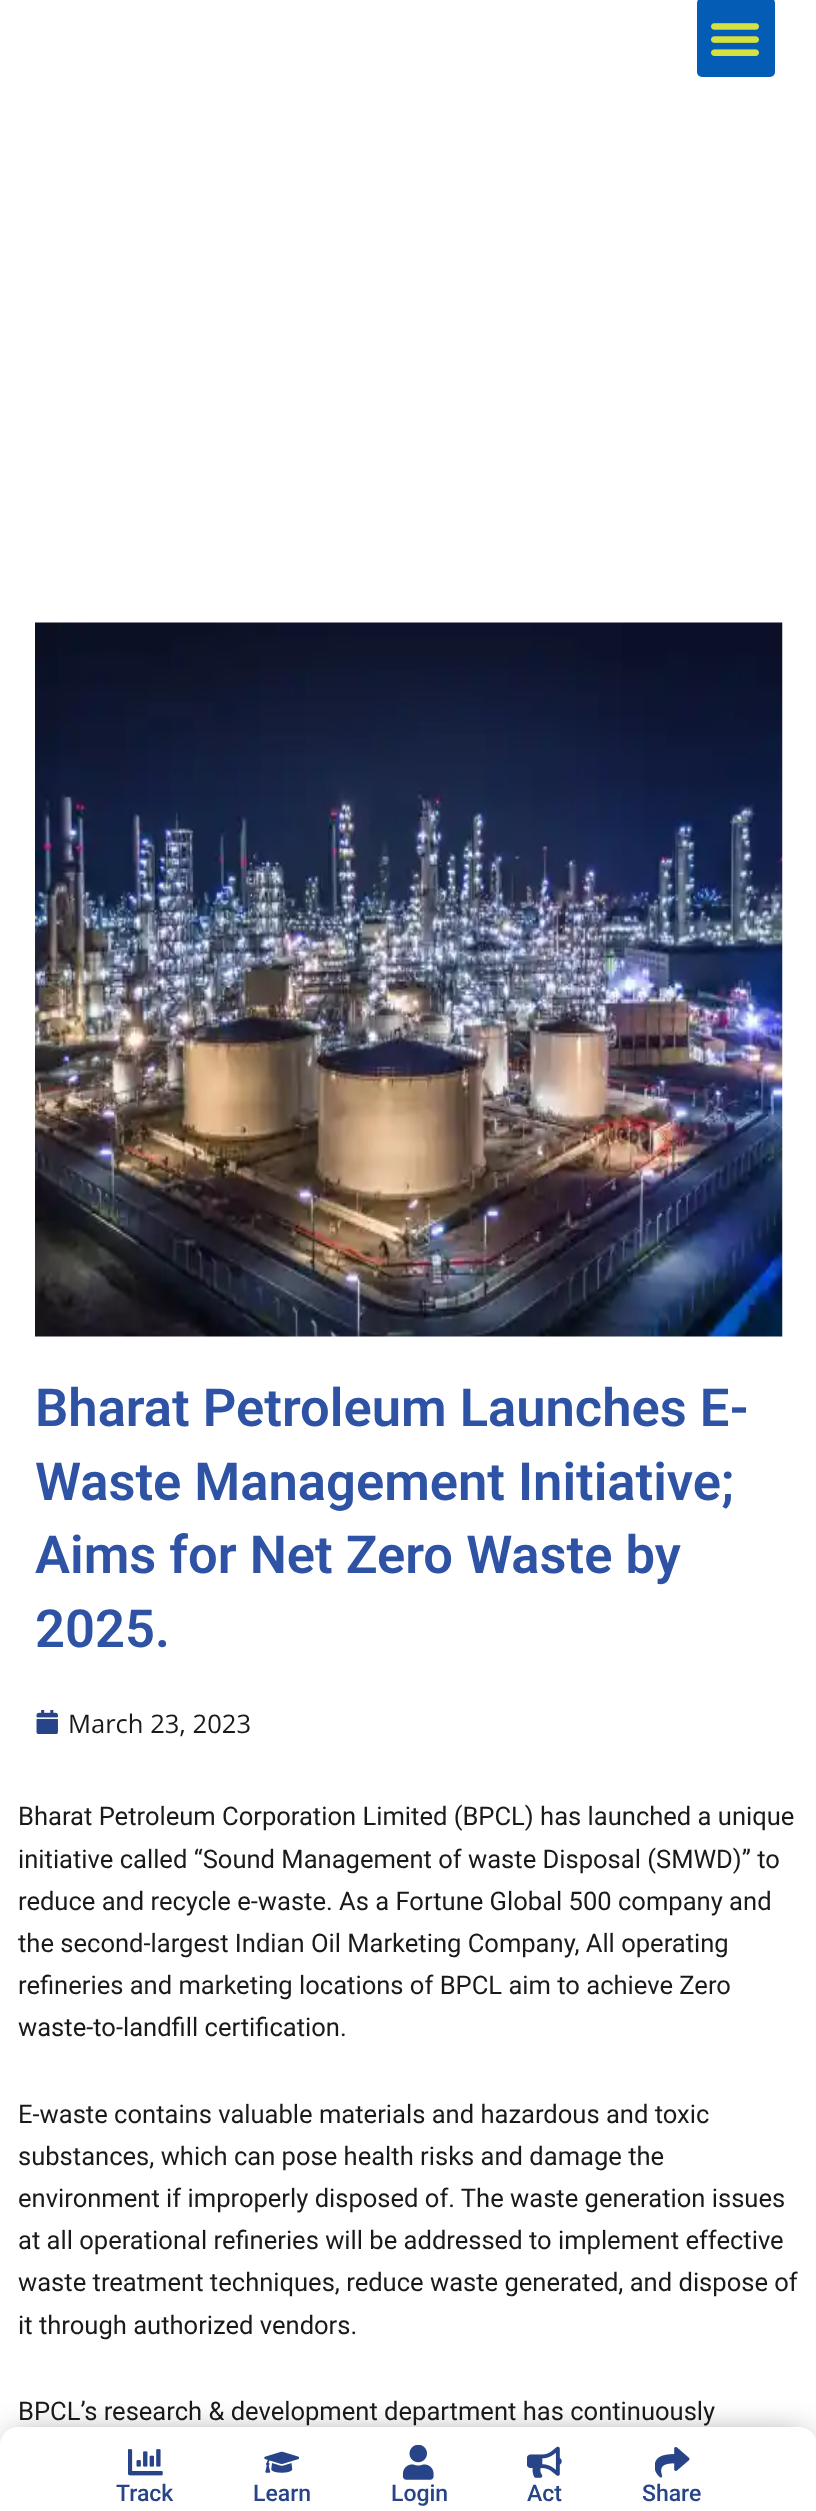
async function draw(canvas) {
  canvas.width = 816
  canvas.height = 2511
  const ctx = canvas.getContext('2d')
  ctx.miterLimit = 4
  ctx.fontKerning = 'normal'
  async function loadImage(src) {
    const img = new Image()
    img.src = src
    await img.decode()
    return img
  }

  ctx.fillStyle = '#fff'
  ctx.fillRect(0, 0, 816, 2511)
  ctx.fillStyle = '#045cb4'
  ctx.beginPath()
  ctx.roundRect(697, -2, 78, 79, 5)
  ctx.fill()
  ctx.drawImage(await loadImage('image0.png'), 711, 23, 48, 33)
  ctx.drawImage(await loadImage('image1.png'), 35, 622, 748, 715)
  ctx.font = '600 52.5px Roboto'
  ctx.fillStyle = '#2e52a4'
  ctx.fillText('Bharat Petroleum Launches E-', 35, 1426)
  ctx.fillText('Waste Management Initiative;', 35, 1500)
  ctx.fillText('Aims for Net Zero Waste by', 35, 1573)
  ctx.fillText('2025.', 35, 1647)
  ctx.drawImage(await loadImage('image2.png'), 36, 1710, 22, 24)
  ctx.font = '25.55px Open Sans'
  ctx.fillStyle = '#181b19'
  ctx.fillText('March 23, 2023', 68, 1733)
  ctx.font = '25.55px Roboto'
  ctx.fillText('Bharat Petroleum Corporation Limited (BPCL) has launched a unique', 18, 1825)
  ctx.fillText('initiative called “Sound Management of waste Disposal (SMWD)” to', 18, 1868)
  ctx.fillText('reduce and recycle e-waste. As a Fortune Global 500 company and', 18, 1910)
  ctx.fillText('the second-largest Indian Oil Marketing Company, All operating', 18, 1952)
  ctx.fillText('refineries and marketing locations of BPCL aim to achieve Zero', 18, 1994)
  ctx.fillText('waste-to-landfill certification.', 18, 2036)
  ctx.fillText('E-waste contains valuable materials and hazardous and toxic', 18, 2123)
  ctx.fillText('substances, which can pose health risks and damage the', 18, 2165)
  ctx.fillText('environment if improperly disposed of. The waste generation issues', 18, 2207)
  ctx.fillText('at all operational refineries will be addressed to implement effective', 18, 2249)
  ctx.fillText('waste treatment techniques, reduce waste generated, and dispose of', 18, 2291)
  ctx.fillText('it through authorized vendors.', 18, 2334)
  ctx.fillText('BPCL’s research & development department has continuously', 18, 2420)
  ctx.fillStyle = '#00000080'
  ctx.filter = 'blur(17.5px)'
  ctx.beginPath()
  ctx.roundRect(11, 2438, 796, 63, 7)
  ctx.fill()
  ctx.filter = 'none'
  ctx.fillStyle = '#fff'
  ctx.beginPath()
  ctx.moveTo(18, 2427)
  ctx.lineTo(799, 2427)
  ctx.bezierCurveTo(809, 2427, 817, 2435, 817, 2445)
  ctx.lineTo(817, 2511)
  ctx.lineTo(0, 2511)
  ctx.lineTo(0, 2445)
  ctx.bezierCurveTo(0, 2435, 8, 2427, 18, 2427)
  ctx.closePath()
  ctx.fill()
  ctx.drawImage(await loadImage('image3.png'), 128, 2449, 35, 27)
  ctx.font = '500 23px Roboto'
  ctx.fillStyle = '#274489'
  ctx.fillText('Track', 116, 2501)
  ctx.drawImage(await loadImage('image4.png'), 264, 2451, 35, 22)
  ctx.fillText('Learn', 253, 2501)
  ctx.drawImage(await loadImage('image5.png'), 402, 2445, 32, 35)
  ctx.fillText('Login', 391, 2501)
  ctx.drawImage(await loadImage('image6.png'), 527, 2446, 35, 32)
  ctx.fillText('Act', 527, 2501)
  ctx.drawImage(await loadImage('image7.png'), 655, 2447, 35, 31)
  ctx.fillText('Share', 642, 2501)
}

draw(document.querySelector('canvas'))
